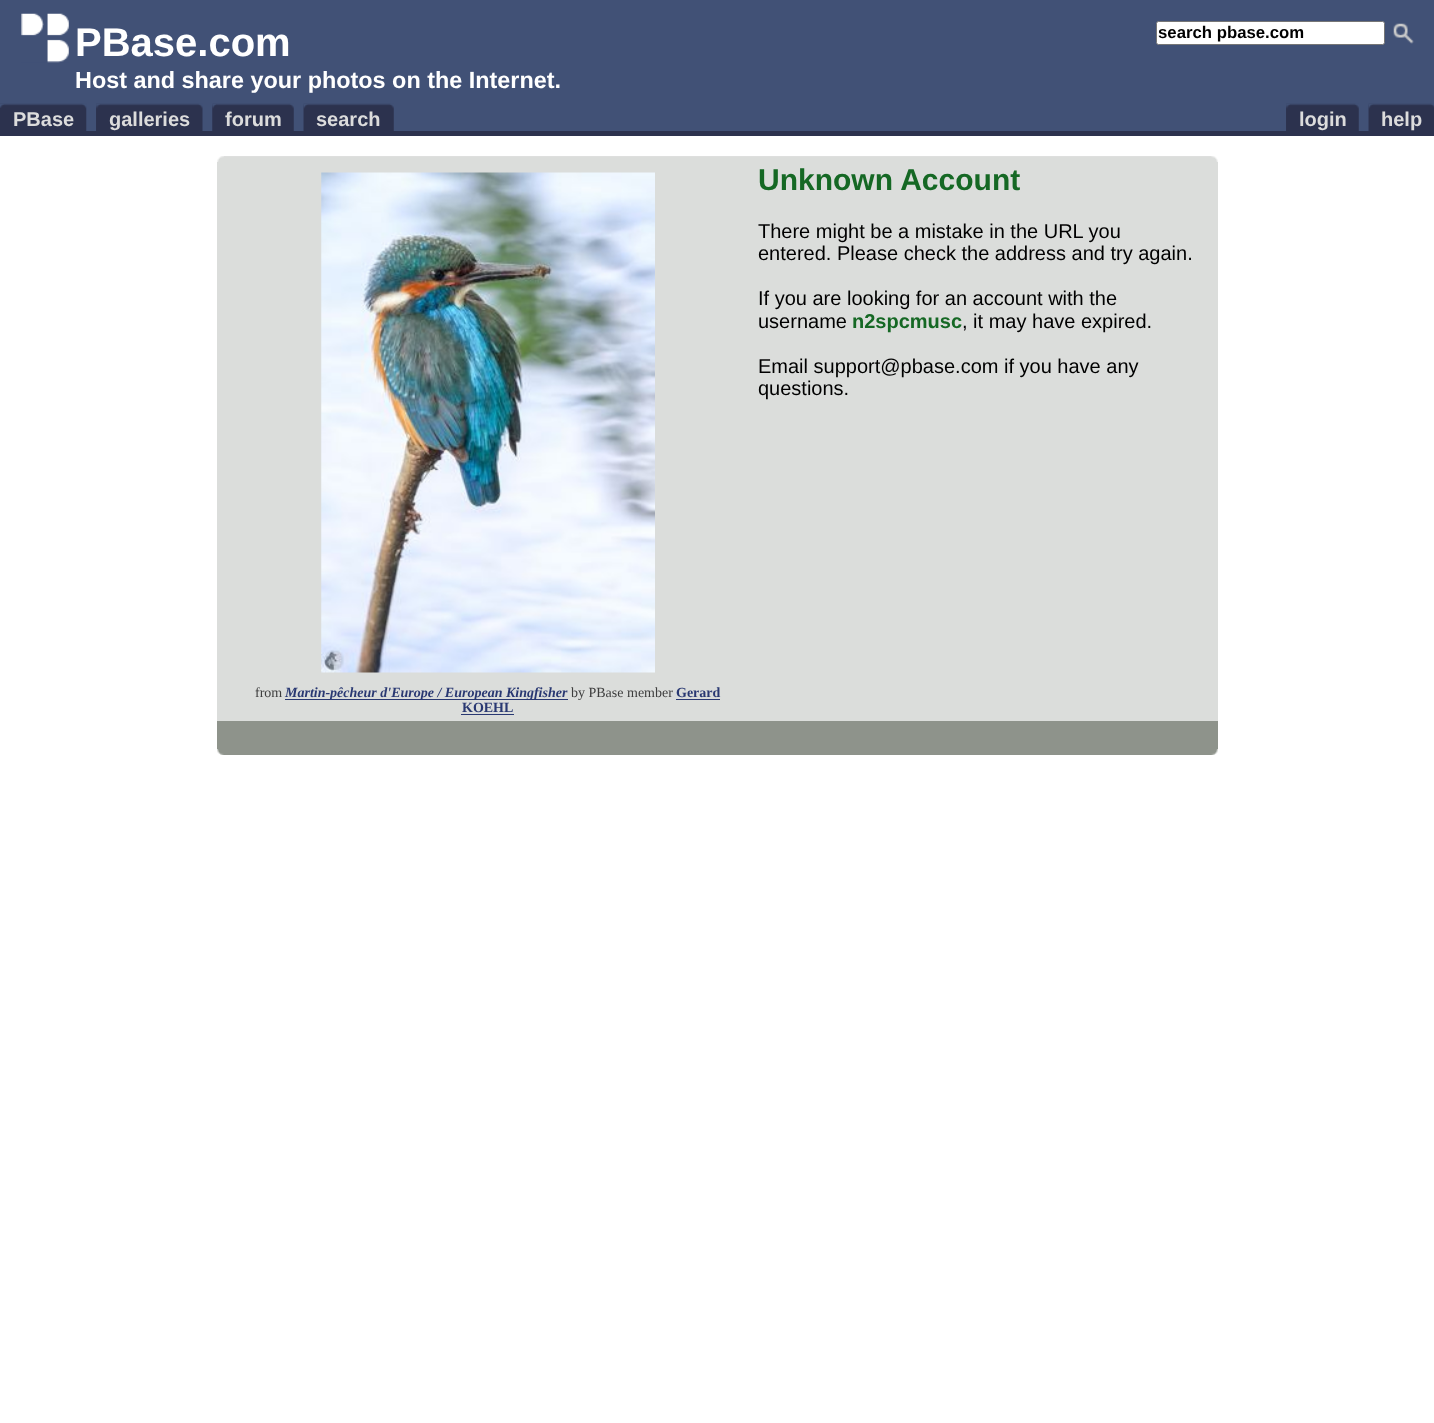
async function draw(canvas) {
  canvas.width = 1434
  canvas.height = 1423
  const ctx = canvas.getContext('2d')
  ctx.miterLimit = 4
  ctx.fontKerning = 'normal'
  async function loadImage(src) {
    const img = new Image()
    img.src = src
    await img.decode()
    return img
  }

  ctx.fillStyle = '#fff'
  ctx.fillRect(0, 0, 1434, 1423)
  ctx.fillStyle = '#415176'
  ctx.fillRect(0, 0, 1434, 131)
  ctx.fillStyle = '#2c324e'
  ctx.fillRect(0, 131, 1434, 5)
  ctx.drawImage(await loadImage('image0.png'), 21, 13, 48, 50)
  ctx.font = 'bold 40px Liberation Sans'
  ctx.fillStyle = '#fff'
  ctx.fillText('PBase.com', 75, 56)
  ctx.beginPath()
  ctx.roundRect(1156.5, 21.5, 228, 23, 2)
  ctx.fill()
  ctx.strokeStyle = '#767676'
  ctx.stroke()
  ctx.font = 'bold 16.75px Liberation Sans'
  ctx.fillStyle = '#000'
  ctx.fillText('search pbase.com', 1158, 38)
  ctx.drawImage(await loadImage('image1.png'), 1393, 23, 21, 21)
  ctx.font = 'bold 23.4px Liberation Sans'
  ctx.fillStyle = '#fff'
  ctx.fillText('Host and share your photos on the Internet.', 75, 88)
  ctx.drawImage(await loadImage('image2.png'), 0, 103, 87, 28)
  ctx.drawImage(await loadImage('image3.png'), 0, 104, 4, 4)
  ctx.font = 'bold 20px Liberation Sans'
  ctx.fillStyle = '#dcdcdc'
  ctx.fillText('PBase', 13, 126)
  ctx.drawImage(await loadImage('image4.png'), 96, 103, 107, 28)
  ctx.drawImage(await loadImage('image5.png'), 96, 104, 4, 27)
  ctx.fillText('galleries', 109, 126)
  ctx.drawImage(await loadImage('image6.png'), 212, 103, 82, 28)
  ctx.drawImage(await loadImage('image7.png'), 212, 104, 4, 27)
  ctx.fillText('forum', 225, 126)
  ctx.drawImage(await loadImage('image8.png'), 303, 103, 91, 28)
  ctx.drawImage(await loadImage('image9.png'), 303, 104, 5, 27)
  ctx.fillText('search', 316, 126)
  ctx.drawImage(await loadImage('image10.png'), 1286, 103, 73, 28)
  ctx.drawImage(await loadImage('image5.png'), 1286, 104, 4, 27)
  ctx.fillText('login', 1299, 126)
  ctx.drawImage(await loadImage('image11.png'), 1368, 103, 66, 28)
  ctx.drawImage(await loadImage('image12.png'), 1368, 104, 5, 27)
  ctx.fillText('help', 1381, 126)
  ctx.drawImage(await loadImage('image13.png'), 217, 156, 995, 6)
  ctx.drawImage(await loadImage('image14.png'), 224, 156, 994, 6)
  ctx.fillStyle = '#dbdddb'
  ctx.fillRect(217, 162, 1001, 559)
  ctx.font = 'bold 30px Liberation Sans'
  ctx.fillStyle = '#156824'
  ctx.fillText('Unknown Account', 758, 190)
  ctx.font = '20px Liberation Sans'
  ctx.fillStyle = '#000'
  ctx.fillText('There might be a mistake in the URL you', 758, 238)
  ctx.fillText('entered. Please check the address and try again.', 758, 260)
  ctx.fillText('If you are looking for an account with the', 758, 305)
  ctx.fillText('username', 758, 328)
  ctx.font = 'bold 20px Liberation Sans'
  ctx.fillStyle = '#156824'
  ctx.fillText('n2spcmusc', 852, 328)
  ctx.font = '20px Liberation Sans'
  ctx.fillStyle = '#000'
  ctx.fillText(', it may have expired.', 962, 328)
  ctx.fillText('Email support@pbase.com if you have any', 758, 373)
  ctx.fillText('questions.', 758, 395)
  ctx.drawImage(await loadImage('image15.png'), 321, 172, 334, 501)
  ctx.font = '14px Liberation Serif'
  ctx.fillStyle = '#3d3d3d'
  ctx.fillText('from', 255, 697)
  ctx.fillStyle = '#293872'
  ctx.fillRect(285, 699, 283, 1)
  ctx.font = 'italic bold 14px Liberation Serif'
  ctx.fillText('Martin-pêcheur d\'Europe / European Kingfisher', 285, 697)
  ctx.font = '14px Liberation Serif'
  ctx.fillStyle = '#3d3d3d'
  ctx.fillText('by PBase member', 571, 697)
  ctx.font = 'bold 14px Liberation Serif'
  ctx.fillStyle = '#293872'
  ctx.fillText('Gerard', 676, 697)
  ctx.fillRect(676, 699, 44, 1)
  ctx.fillText('KOEHL', 462, 712)
  ctx.fillRect(461, 714, 53, 1)
  ctx.fillStyle = '#8e938b'
  ctx.fillRect(217, 721, 1001, 28)
  ctx.drawImage(await loadImage('image16.png'), 217, 749, 995, 6)
  ctx.drawImage(await loadImage('image17.png'), 1211, 749, 7, 6)
}

draw(document.querySelector('canvas'))
